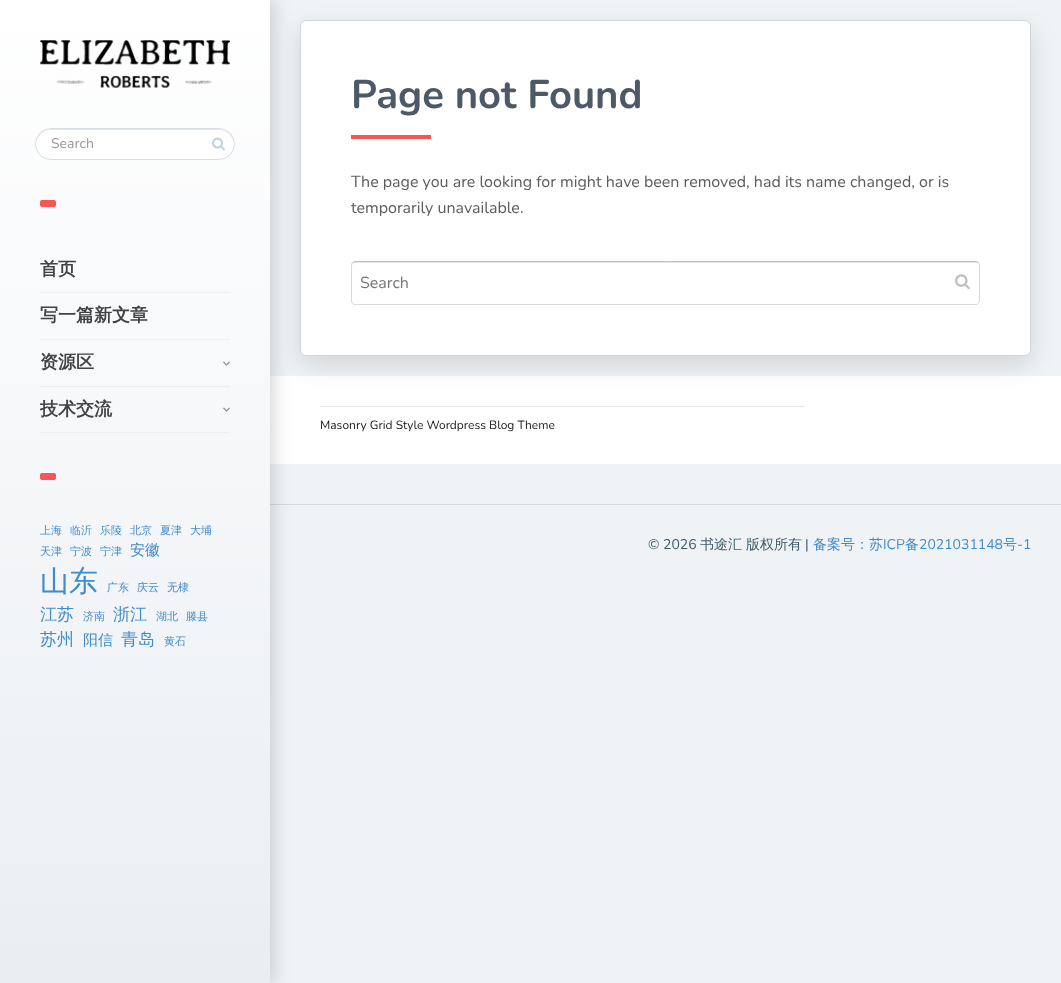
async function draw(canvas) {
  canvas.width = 1061
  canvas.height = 983
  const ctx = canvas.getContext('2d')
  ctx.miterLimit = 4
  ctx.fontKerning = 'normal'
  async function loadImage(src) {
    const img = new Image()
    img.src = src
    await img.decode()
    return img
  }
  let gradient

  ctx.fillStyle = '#f0f3f5'
  ctx.fillRect(0, 0, 1061, 983)
  ctx.fillStyle = '#fff'
  ctx.fillRect(270, 376, 791, 88)
  ctx.fillStyle = '#0000001f'
  ctx.filter = 'blur(12px)'
  ctx.beginPath()
  ctx.roundRect(300, 29, 731, 336, 6)
  ctx.fill()
  ctx.filter = 'none'
  ctx.fillStyle = '#fff'
  ctx.beginPath()
  ctx.roundRect(300.5, 20.5, 730, 335, 5.5)
  ctx.fill()
  ctx.strokeStyle = '#d1d7dc'
  ctx.stroke()
  ctx.fillStyle = '#d1dbe1'
  ctx.fillRect(270, 504, 791, 1)
  ctx.fillStyle = '#00000033'
  ctx.filter = 'blur(10px)'
  ctx.beginPath()
  ctx.rect(-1, -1, 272, 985)
  ctx.fill()
  ctx.filter = 'none'
  gradient = ctx.createLinearGradient(135, 0, 135, 983)
  gradient.addColorStop(0, '#fff')
  gradient.addColorStop(1, '#eaeef2')
  ctx.fillStyle = gradient
  ctx.fillRect(0, 0, 270, 983)
  ctx.drawImage(await loadImage('image0.png'), 40, 40, 190, 48)
  ctx.fillStyle = '#fff'
  ctx.beginPath()
  ctx.roundRect(35, 128, 200, 32, 16)
  ctx.fill()
  ctx.fillStyle = '#e6e6e6'
  ctx.beginPath()
  ctx.moveTo(51, 130)
  ctx.lineTo(219, 130)
  ctx.bezierCurveTo(227, 130, 234, 137, 234, 145)
  ctx.bezierCurveTo(235, 123, 202, 129, 191, 129)
  ctx.lineTo(79, 129)
  ctx.bezierCurveTo(68, 129, 35, 123, 36, 145)
  ctx.bezierCurveTo(36, 137, 43, 130, 51, 130)
  ctx.closePath()
  ctx.fill()
  ctx.beginPath()
  ctx.roundRect(35.5, 128.5, 199, 31, 15.5)
  ctx.strokeStyle = '#d7dee5'
  ctx.stroke()
  ctx.font = '14px Nunito'
  ctx.fillStyle = '#999'
  ctx.fillText('Search', 51, 148)
  ctx.drawImage(await loadImage('image1.png'), 212, 137, 13, 14)
  ctx.fillStyle = '#f85555'
  ctx.beginPath()
  ctx.roundRect(40, 200, 16, 7, 2)
  ctx.fill()
  ctx.fillStyle = '#eff0f1'
  ctx.fillRect(40, 292, 190, 1)
  ctx.font = 'bold 18px WenQuanYi Zen Hei'
  ctx.fillStyle = '#414344'
  ctx.fillText('首页', 40, 275)
  ctx.fillStyle = '#eeeff1'
  ctx.fillRect(40, 339, 190, 1)
  ctx.fillStyle = '#414344'
  ctx.fillText('写一篇新文章', 40, 321)
  ctx.fillStyle = '#edeef0'
  ctx.fillRect(40, 386, 190, 1)
  ctx.fillStyle = '#414344'
  ctx.fillText('资源区', 40, 368)
  ctx.drawImage(await loadImage('image2.png'), 223, 361, 7, 5)
  ctx.fillStyle = '#eceeef'
  ctx.fillRect(40, 432, 190, 1)
  ctx.fillStyle = '#414344'
  ctx.fillText('技术交流', 40, 415)
  ctx.drawImage(await loadImage('image3.png'), 223, 407, 7, 5)
  ctx.fillStyle = '#f85555'
  ctx.beginPath()
  ctx.roundRect(40, 473, 16, 7, 2)
  ctx.fill()
  ctx.font = '500 11px WenQuanYi Zen Hei'
  ctx.fillStyle = '#428bca'
  ctx.fillText('上海', 40, 534)
  ctx.fillText('临沂', 70, 534)
  ctx.fillText('乐陵', 100, 534)
  ctx.fillText('北京', 130, 534)
  ctx.fillText('夏津', 160, 534)
  ctx.fillText('大埔', 190, 534)
  ctx.fillText('天津', 40, 555)
  ctx.fillText('宁波', 70, 555)
  ctx.fillText('宁津', 100, 555)
  ctx.font = '500 15px WenQuanYi Zen Hei'
  ctx.fillText('安徽', 130, 555)
  ctx.font = '500 29px WenQuanYi Zen Hei'
  ctx.fillText('山东', 40, 591)
  ctx.font = '500 11px WenQuanYi Zen Hei'
  ctx.fillText('广东', 107, 591)
  ctx.fillText('庆云', 137, 591)
  ctx.fillText('无棣', 167, 591)
  ctx.font = '500 17px WenQuanYi Zen Hei'
  ctx.fillText('江苏', 40, 620)
  ctx.font = '500 11px WenQuanYi Zen Hei'
  ctx.fillText('济南', 83, 620)
  ctx.font = '500 17px WenQuanYi Zen Hei'
  ctx.fillText('浙江', 113, 620)
  ctx.font = '500 11px WenQuanYi Zen Hei'
  ctx.fillText('湖北', 156, 620)
  ctx.fillText('滕县', 186, 620)
  ctx.font = '500 17px WenQuanYi Zen Hei'
  ctx.fillText('苏州', 40, 645)
  ctx.font = '500 15px WenQuanYi Zen Hei'
  ctx.fillText('阳信', 83, 645)
  ctx.font = '500 17px WenQuanYi Zen Hei'
  ctx.fillText('青岛', 121, 645)
  ctx.font = '500 11px WenQuanYi Zen Hei'
  ctx.fillText('黄石', 164, 645)
  ctx.font = 'bold 40px Nunito'
  ctx.fillStyle = '#4e5968'
  ctx.fillText('Page not Found', 351, 108)
  ctx.fillStyle = '#f85555'
  ctx.fillRect(351, 135, 80, 4)
  ctx.font = '16px Nunito'
  ctx.fillStyle = '#5c5c5c'
  ctx.fillText('The page you are looking for might have been removed, had its name changed, or is', 351, 187)
  ctx.fillText('temporarily unavailable.', 351, 213)
  ctx.fillStyle = '#e6e6e6'
  ctx.beginPath()
  ctx.moveTo(355, 263)
  ctx.lineTo(976, 263)
  ctx.bezierCurveTo(978, 263, 979, 264, 979, 266)
  ctx.lineTo(979, 265)
  ctx.bezierCurveTo(979, 263, 978, 262, 976, 262)
  ctx.lineTo(355, 262)
  ctx.bezierCurveTo(353, 262, 352, 263, 352, 265)
  ctx.lineTo(352, 266)
  ctx.bezierCurveTo(352, 264, 353, 263, 355, 263)
  ctx.closePath()
  ctx.fill()
  ctx.beginPath()
  ctx.moveTo(352.5, 262.5)
  ctx.lineTo(355, 261.5)
  ctx.lineTo(976, 261.5)
  ctx.lineTo(978.5, 262.5)
  ctx.strokeStyle = '#bfbfbf'
  ctx.stroke()
  ctx.beginPath()
  ctx.moveTo(978.5, 262.5)
  ctx.bezierCurveTo(979, 263, 979.5, 264, 979.5, 265)
  ctx.lineTo(979.5, 301)
  ctx.bezierCurveTo(979.5, 302, 979, 303, 978.5, 303.5)
  ctx.bezierCurveTo(978, 304, 977, 304.5, 976, 304.5)
  ctx.lineTo(355, 304.5)
  ctx.bezierCurveTo(354, 304.5, 353, 304, 352.5, 303.5)
  ctx.bezierCurveTo(352, 303, 351.5, 302, 351.5, 301)
  ctx.lineTo(351.5, 265)
  ctx.bezierCurveTo(351.5, 264, 352, 263, 352.5, 262.5)
  ctx.strokeStyle = '#d9d9d9'
  ctx.stroke()
  ctx.fillStyle = '#757575'
  ctx.fillText('Search', 360, 288)
  ctx.drawImage(await loadImage('image4.png'), 955, 274, 15, 16)
  ctx.fillStyle = '#e6e6e6'
  ctx.fillRect(320, 406, 484, 1)
  ctx.font = '12px Nunito'
  ctx.fillStyle = '#1a1a1a'
  ctx.fillText('Masonry Grid Style Wordpress Blog Theme', 320, 429)
  ctx.font = '14px Nunito'
  ctx.fillStyle = '#3c5b68'
  ctx.fillText('© 2026', 648, 549)
  ctx.font = '500 14px WenQuanYi Zen Hei'
  ctx.fillText('书途汇', 700, 549)
  ctx.fillText('版权所有', 746, 549)
  ctx.font = '14px Nunito'
  ctx.fillText('|', 805, 549)
  ctx.font = '500 14px WenQuanYi Zen Hei'
  ctx.fillStyle = '#428bca'
  ctx.fillText('备案号：苏', 813, 549)
  ctx.font = '14px Nunito'
  ctx.fillText('ICP', 883, 549)
  ctx.font = '500 14px WenQuanYi Zen Hei'
  ctx.fillText('备', 905, 549)
  ctx.font = '14px Nunito'
  ctx.fillText('2021031148', 919, 549)
  ctx.font = '500 14px WenQuanYi Zen Hei'
  ctx.fillText('号', 1003, 549)
  ctx.font = '14px Nunito'
  ctx.fillText('-1', 1017, 549)
}

draw(document.querySelector('canvas'))
